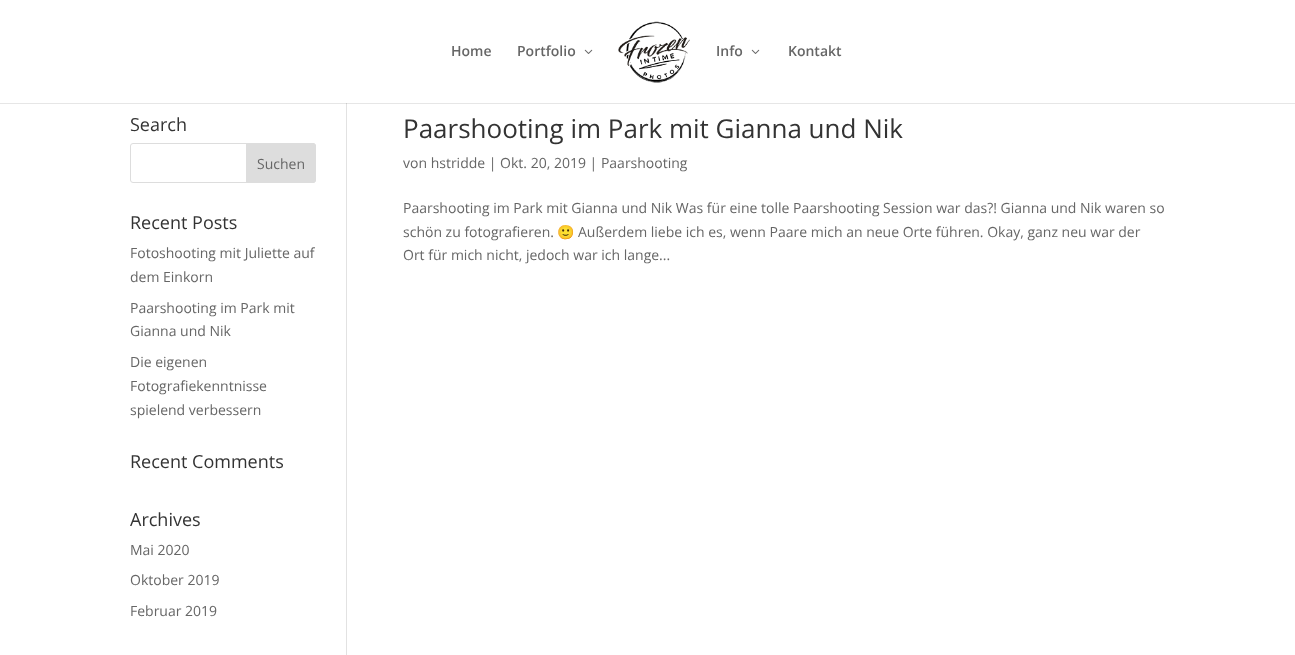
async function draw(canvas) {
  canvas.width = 1295
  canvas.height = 655
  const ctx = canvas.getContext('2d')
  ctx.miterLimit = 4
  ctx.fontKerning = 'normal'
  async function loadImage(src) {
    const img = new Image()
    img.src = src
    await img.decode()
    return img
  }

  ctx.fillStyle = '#fff'
  ctx.fillRect(0, 0, 1295, 655)
  ctx.fillStyle = '#e6e6e6'
  ctx.fillRect(0, 103, 1295, 1)
  ctx.font = '600 14px Open Sans'
  ctx.fillStyle = '#666'
  ctx.fillText('Home', 451, 56)
  ctx.fillText('Portfolio', 517, 56)
  ctx.drawImage(await loadImage('image0.png'), 584, 49, 9, 5)
  ctx.drawImage(await loadImage('image1.png'), 618, 21, 72, 62)
  ctx.fillText('Info', 716, 56)
  ctx.drawImage(await loadImage('image0.png'), 751, 49, 9, 5)
  ctx.fillText('Kontakt', 788, 56)
  ctx.fillStyle = '#e2e2e2'
  ctx.fillRect(346, 104, 1, 551)
  ctx.fillStyle = '#cbcbcb'
  ctx.fillRect(346, 103, 1, 1)
  ctx.font = '18px Open Sans'
  ctx.fillStyle = '#333'
  ctx.fillText('Search', 130, 131)
  ctx.beginPath()
  ctx.roundRect(130.5, 143.5, 185, 39, 2.5)
  ctx.strokeStyle = '#ddd'
  ctx.stroke()
  ctx.fillStyle = '#ddd'
  ctx.beginPath()
  ctx.roundRect(246.5, 143.5, 69, 39, [0, 2.5, 2.5, 0])
  ctx.fill()
  ctx.stroke()
  ctx.font = '14px Open Sans'
  ctx.fillStyle = '#666'
  ctx.fillText('Suchen', 257, 169)
  ctx.font = '18px Open Sans'
  ctx.fillStyle = '#333'
  ctx.fillText('Recent Posts', 130, 229)
  ctx.font = '14px Open Sans'
  ctx.fillStyle = '#666'
  ctx.fillText('Fotoshooting mit Juliette auf', 130, 258)
  ctx.fillText('dem Einkorn', 130, 282)
  ctx.fillText('Paarshooting im Park mit', 130, 313)
  ctx.fillText('Gianna und Nik', 130, 336)
  ctx.fillText('Die eigenen', 130, 367)
  ctx.fillText('Fotografiekenntnisse', 130, 391)
  ctx.fillText('spielend verbessern', 130, 415)
  ctx.font = '18px Open Sans'
  ctx.fillStyle = '#333'
  ctx.fillText('Recent Comments', 130, 468)
  ctx.fillText('Archives', 130, 526)
  ctx.font = '14px Open Sans'
  ctx.fillStyle = '#666'
  ctx.fillText('Mai 2020', 130, 555)
  ctx.fillText('Oktober 2019', 130, 585)
  ctx.fillText('Februar 2019', 130, 616)
  ctx.font = '26px Open Sans'
  ctx.fillStyle = '#333'
  ctx.fillText('Paarshooting im Park mit Gianna und Nik', 403, 138)
  ctx.font = '14px Open Sans'
  ctx.fillStyle = '#666'
  ctx.fillText('von hstridde | Okt. 20, 2019 | Paarshooting', 403, 168)
  ctx.fillText('Paarshooting im Park mit Gianna und Nik Was für eine tolle Paarshooting Session war das?! Gianna und Nik waren so', 403, 213)
  ctx.fillText('schön zu fotografieren.', 403, 237)
  ctx.font = '14px Noto Color Emoji'
  ctx.fillText('🙂', 557, 237)
  ctx.font = '14px Open Sans'
  ctx.fillText('Außerdem liebe ich es, wenn Paare mich an neue Orte führen. Okay, ganz neu war der', 578, 237)
  ctx.fillText('Ort für mich nicht, jedoch war ich lange...', 403, 260)
}

draw(document.querySelector('canvas'))
